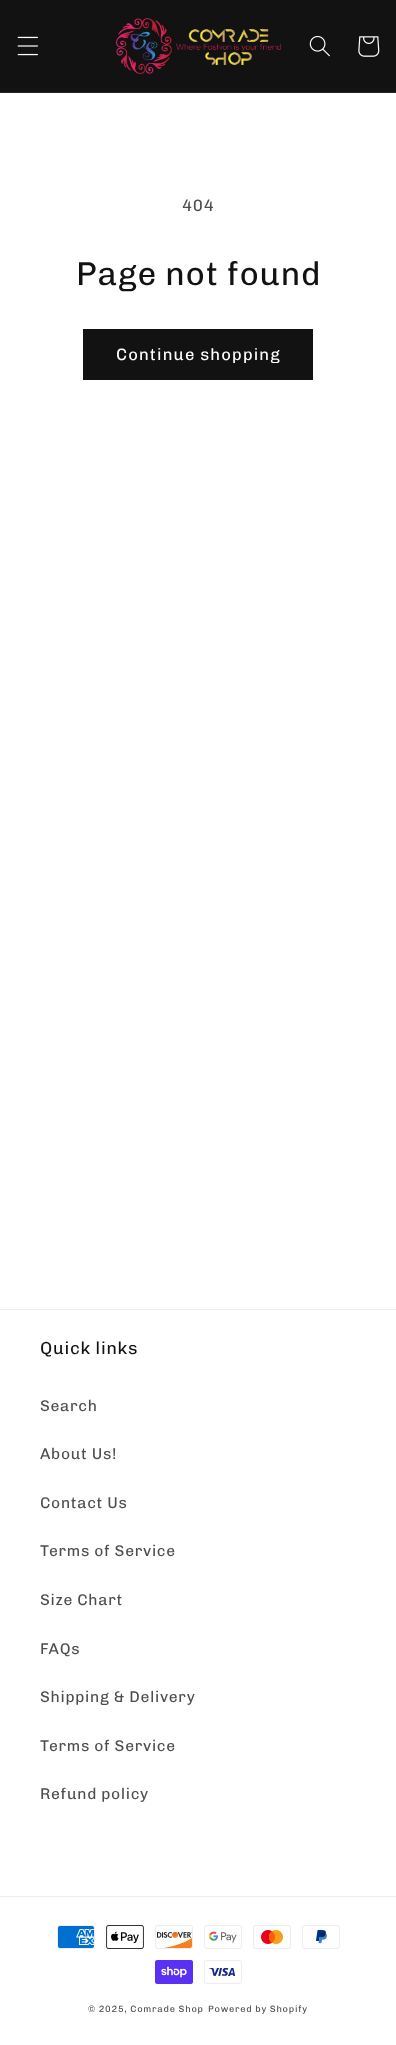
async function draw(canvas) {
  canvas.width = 396
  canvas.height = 2045
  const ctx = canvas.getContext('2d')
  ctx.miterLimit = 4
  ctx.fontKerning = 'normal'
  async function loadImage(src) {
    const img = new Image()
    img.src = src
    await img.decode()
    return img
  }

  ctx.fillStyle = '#fff'
  ctx.fillRect(0, 0, 396, 2045)
  ctx.fillStyle = '#121212'
  ctx.fillRect(0, 0, 396, 92)
  ctx.fillStyle = '#252525'
  ctx.fillRect(0, 92, 396, 1)
  ctx.drawImage(await loadImage('image0.png'), 17, 36, 21, 20)
  ctx.drawImage(await loadImage('image1.png'), 116, 18, 165, 56)
  ctx.drawImage(await loadImage('image2.png'), 309, 35, 21, 22)
  ctx.drawImage(await loadImage('image3.png'), 358, 36, 22, 21)
  ctx.letterSpacing = '0.7px'
  ctx.font = '16.5px Chivo'
  ctx.fillStyle = '#4d4d4d'
  ctx.fillText('404', 182, 211)
  ctx.font = '33px Chivo'
  ctx.fillStyle = '#121212'
  ctx.fillText('Page not found', 76, 285)
  ctx.fillRect(83, 329, 230, 51)
  ctx.letterSpacing = '1.1px'
  ctx.font = '16.5px Chivo'
  ctx.fillStyle = '#fff'
  ctx.fillText('Continue shopping', 116, 360)
  ctx.fillStyle = '#ececec'
  ctx.fillRect(0, 1309, 396, 1)
  ctx.letterSpacing = '0.7px'
  ctx.font = '17.5px Chivo'
  ctx.fillStyle = '#121212'
  ctx.fillText('Quick links', 40, 1354)
  ctx.font = '15.5px Chivo'
  ctx.fillStyle = '#4d4d4d'
  ctx.fillText('Search', 40, 1411)
  ctx.fillText('About Us!', 40, 1459)
  ctx.fillText('Contact Us', 40, 1508)
  ctx.fillText('Terms of Service', 40, 1556)
  ctx.fillText('Size Chart', 40, 1605)
  ctx.fillText('FAQs', 40, 1654)
  ctx.fillText('Shipping & Delivery', 40, 1702)
  ctx.fillText('Terms of Service', 40, 1751)
  ctx.fillText('Refund policy', 40, 1799)
  ctx.fillStyle = '#ececec'
  ctx.fillRect(0, 1896, 396, 1)
  ctx.drawImage(await loadImage('image4.png'), 57, 1925, 38, 24)
  ctx.drawImage(await loadImage('image5.png'), 106, 1925, 38, 24)
  ctx.drawImage(await loadImage('image6.png'), 155, 1925, 38, 24)
  ctx.drawImage(await loadImage('image7.png'), 204, 1925, 38, 24)
  ctx.drawImage(await loadImage('image8.png'), 253, 1925, 38, 24)
  ctx.drawImage(await loadImage('image9.png'), 302, 1925, 38, 24)
  ctx.drawImage(await loadImage('image10.png'), 155, 1960, 38, 24)
  ctx.drawImage(await loadImage('image11.png'), 204, 1960, 38, 24)
  ctx.letterSpacing = '0.75px'
  ctx.font = '9.2px Chivo'
  ctx.fillStyle = '#4d4d4d'
  ctx.fillText('© 2025, Comrade Shop', 88, 2012)
  ctx.fillText('Powered by Shopify', 208, 2012)
}

draw(document.querySelector('canvas'))
